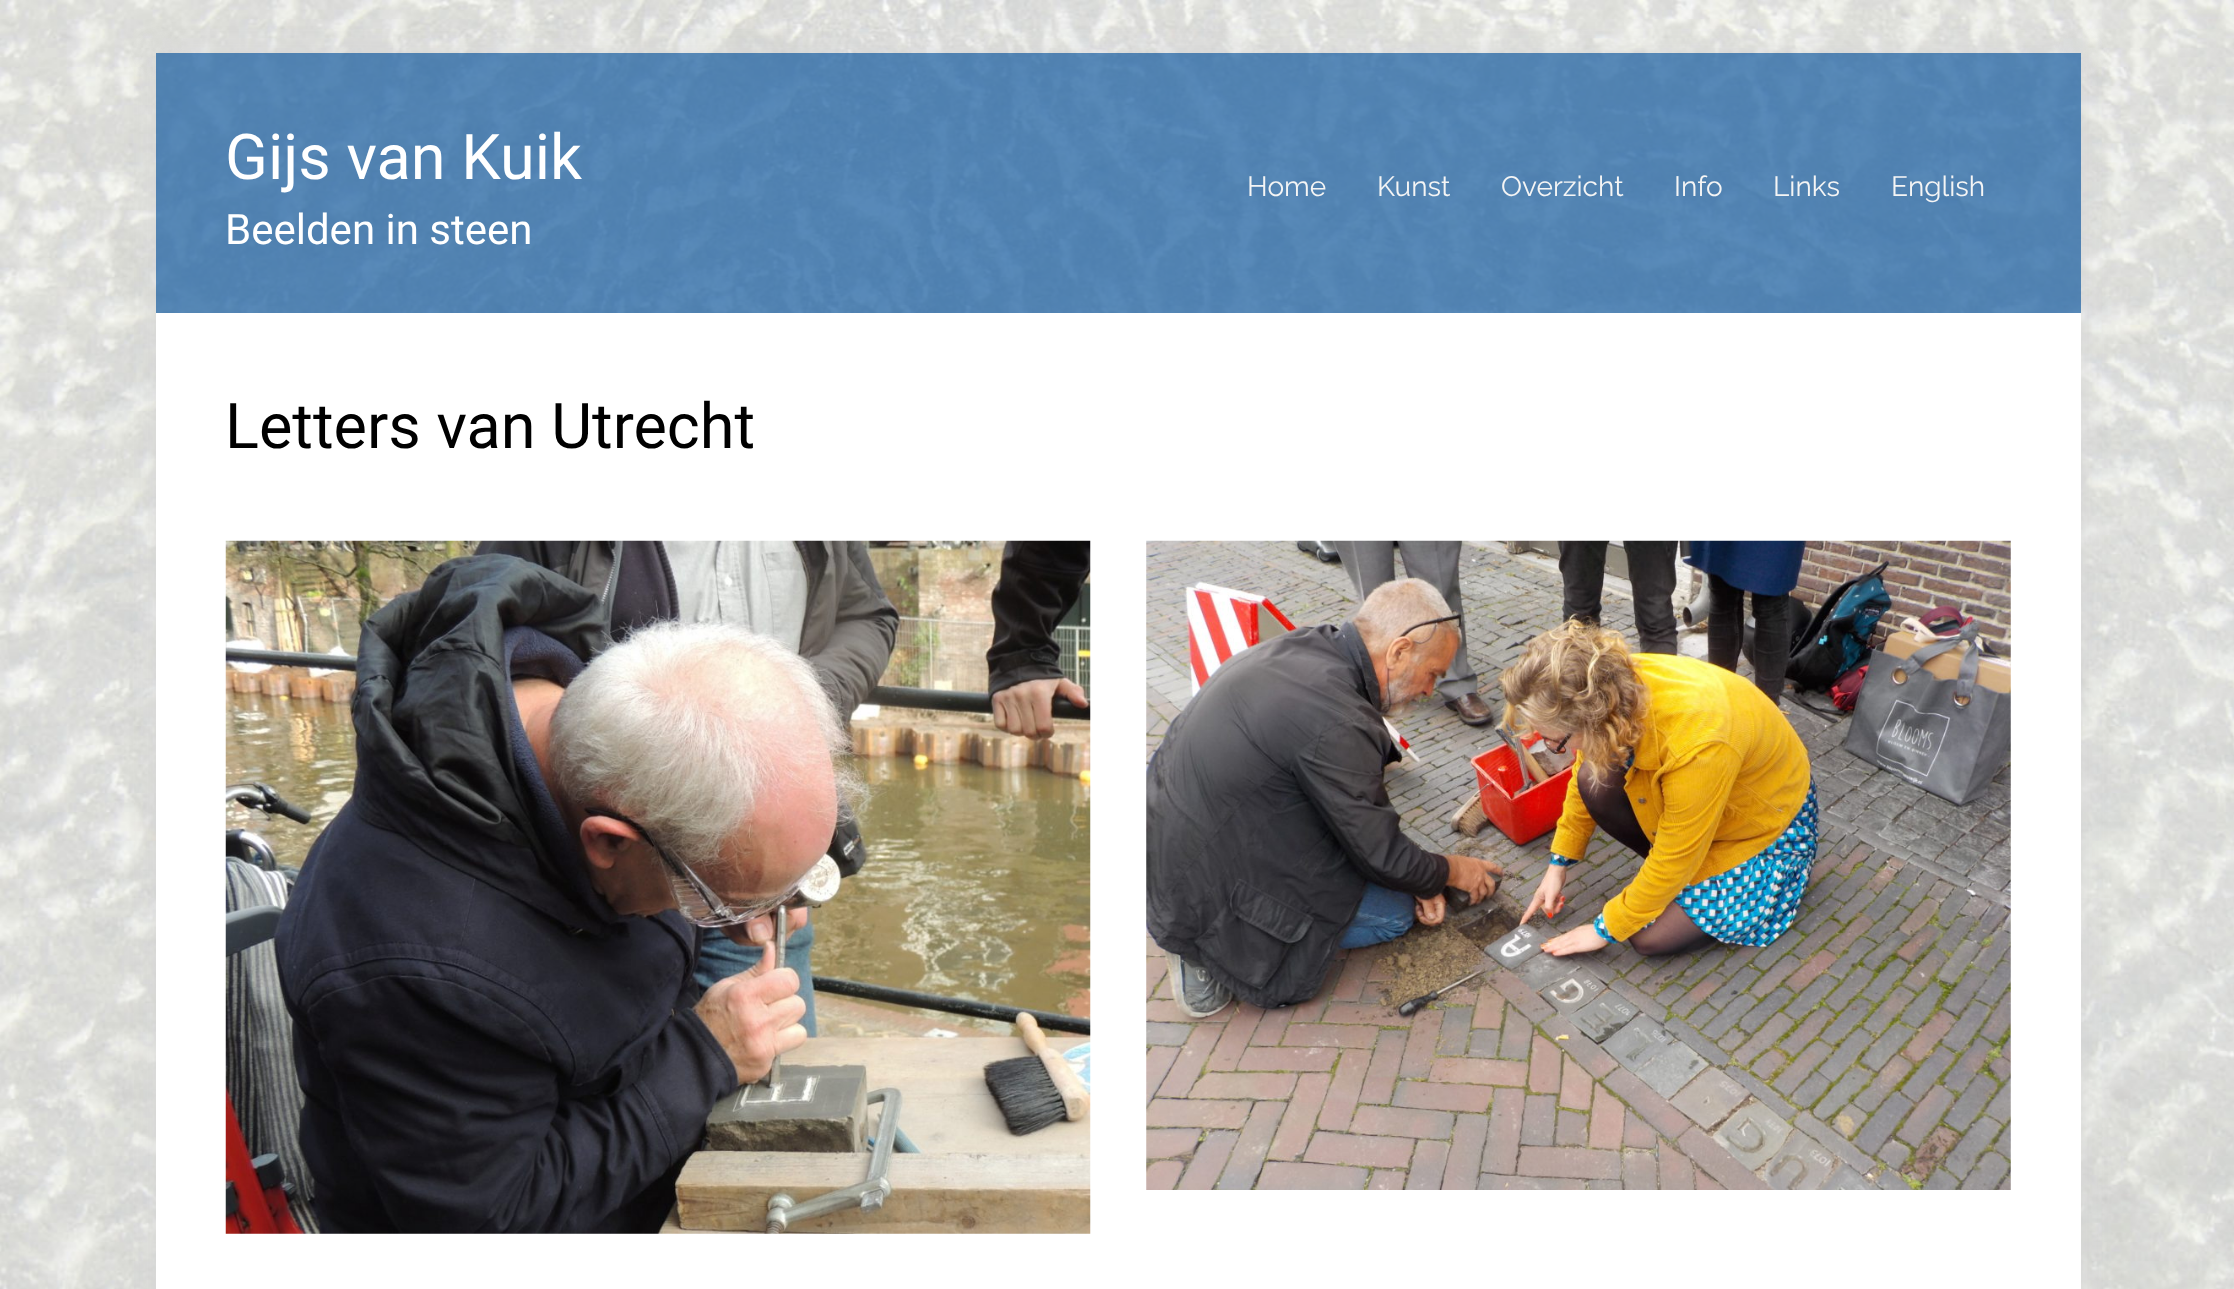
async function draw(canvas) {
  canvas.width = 2234
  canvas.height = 1289
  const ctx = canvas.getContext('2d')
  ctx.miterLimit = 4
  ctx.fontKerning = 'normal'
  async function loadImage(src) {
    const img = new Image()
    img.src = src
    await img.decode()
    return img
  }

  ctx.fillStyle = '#fff'
  ctx.fillRect(0, 0, 2234, 1289)
  ctx.drawImage(await loadImage('image0.png'), 0, 0, 2234, 1289)
  ctx.save()
  ctx.beginPath()
  ctx.moveTo(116, 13)
  ctx.lineTo(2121, 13)
  ctx.lineTo(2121, 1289)
  ctx.lineTo(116, 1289)
  ctx.closePath()
  ctx.moveTo(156, 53)
  ctx.lineTo(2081, 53)
  ctx.lineTo(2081, 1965)
  ctx.lineTo(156, 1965)
  ctx.closePath()
  ctx.clip('evenodd')
  ctx.fillStyle = '#d9d9d9'
  ctx.filter = 'blur(13px)'
  ctx.beginPath()
  ctx.rect(156, 53, 1925, 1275)
  ctx.fill()
  ctx.filter = 'none'
  ctx.restore()
  ctx.fillStyle = '#165b9fb3'
  ctx.fillRect(156, 53, 1925, 260)
  ctx.font = '63px Roboto'
  ctx.fillStyle = '#fff'
  ctx.fillText('Gijs van Kuik', 225, 179)
  ctx.font = '42px Roboto'
  ctx.fillText('Beelden in steen', 225, 244)
  ctx.font = '28px Raleway'
  ctx.fillStyle = '#f5f5f5'
  ctx.fillText('Home', 1247, 196)
  ctx.fillText('Kunst', 1377, 196)
  ctx.fillText('Overzicht', 1501, 196)
  ctx.fillText('Info', 1674, 196)
  ctx.fillText('Links', 1773, 196)
  ctx.fillText('English', 1891, 196)
  ctx.fillStyle = '#fff'
  ctx.fillRect(156, 313, 1925, 976)
  ctx.font = '63px Roboto'
  ctx.fillStyle = '#000'
  ctx.fillText('Letters van Utrecht', 225, 448)
  ctx.drawImage(await loadImage('image1.png'), 225, 540, 866, 694)
  ctx.drawImage(await loadImage('image2.png'), 1146, 540, 865, 650)
}

draw(document.querySelector('canvas'))
